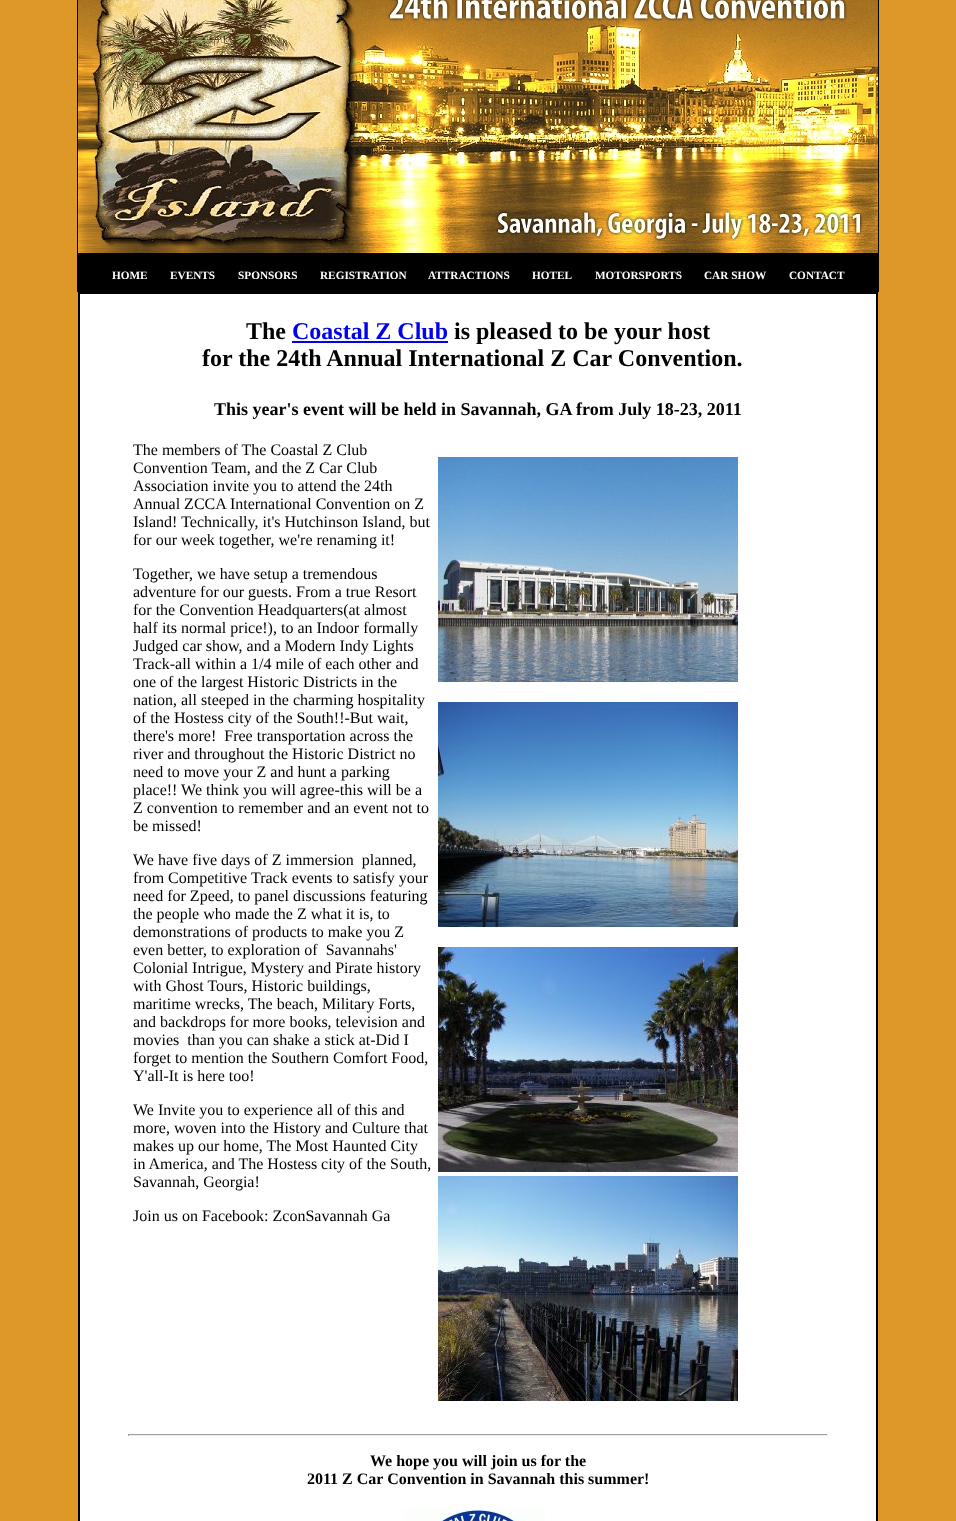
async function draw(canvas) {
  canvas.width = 956
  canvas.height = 1521
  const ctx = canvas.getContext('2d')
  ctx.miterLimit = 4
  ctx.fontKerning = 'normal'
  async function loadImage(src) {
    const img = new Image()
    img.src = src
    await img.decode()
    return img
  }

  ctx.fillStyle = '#de9828'
  ctx.fillRect(0, 0, 956, 1521)
  ctx.fillStyle = '#000'
  ctx.fillRect(77, 0, 802, 292)
  ctx.drawImage(await loadImage('image0.png'), 78, 0, 800, 253)
  ctx.font = 'bold 11.25px Liberation Serif'
  ctx.fillStyle = '#fff'
  ctx.fillText('HOME', 112, 279)
  ctx.fillText('EVENTS', 170, 279)
  ctx.fillText('SPONSORS', 238, 279)
  ctx.fillText('REGISTRATION', 320, 279)
  ctx.fillText('ATTRACTIONS', 428, 279)
  ctx.fillText('HOTEL', 532, 279)
  ctx.fillText('MOTORSPORTS', 595, 279)
  ctx.fillText('CAR SHOW', 704, 279)
  ctx.fillText('CONTACT', 789, 279)
  ctx.fillRect(80, 294, 796, 1227)
  ctx.strokeStyle = '#000'
  ctx.strokeRect(78.5, 292.5, 799, 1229)
  ctx.strokeRect(79.5, 293.5, 797, 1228)
  ctx.font = 'bold 24px Liberation Serif'
  ctx.fillStyle = '#000'
  ctx.fillText('The', 246, 339)
  ctx.fillStyle = '#00e'
  ctx.fillText('Coastal Z Club', 292, 339)
  ctx.fillRect(292, 341, 156, 2)
  ctx.fillStyle = '#000'
  ctx.fillText('is pleased to be your host', 454, 339)
  ctx.fillText('for the 24th Annual International Z Car Convention.', 202, 366)
  ctx.font = 'bold 18px Liberation Serif'
  ctx.fillText('This year\'s event will be held in Savannah, GA from July 18-23, 2011', 214, 415)
  ctx.font = '16px Liberation Serif'
  ctx.fillText('The members of The Coastal Z Club', 133, 455)
  ctx.fillText('Convention Team, and the Z Car Club', 133, 473)
  ctx.fillText('Association invite you to attend the 24th', 133, 491)
  ctx.fillText('Annual ZCCA International Convention on Z', 133, 509)
  ctx.fillText('Island! Technically, it\'s Hutchinson Island, but', 133, 527)
  ctx.fillText('for our week together, we\'re renaming it!', 133, 545)
  ctx.fillText('Together, we have setup a tremendous', 133, 579)
  ctx.fillText('adventure for our guests. From a true Resort', 133, 597)
  ctx.fillText('for the Convention Headquarters(at almost', 133, 615)
  ctx.fillText('half its normal price!), to an Indoor formally', 133, 633)
  ctx.fillText('Judged car show, and a Modern Indy Lights', 133, 651)
  ctx.fillText('Track-all within a 1/4 mile of each other and', 133, 669)
  ctx.fillText('one of the largest Historic Districts in the', 133, 687)
  ctx.fillText('nation, all steeped in the charming hospitality', 133, 705)
  ctx.fillText('of the Hostess city of the South!!-But wait,', 133, 723)
  ctx.fillText('there\'s more!  Free transportation across the', 133, 741)
  ctx.fillText('river and throughout the Historic District no', 133, 759)
  ctx.fillText('need to move your Z and hunt a parking', 133, 777)
  ctx.fillText('place!! We think you will agree-this will be a', 133, 795)
  ctx.fillText('Z convention to remember and an event not to', 133, 813)
  ctx.fillText('be missed!', 133, 831)
  ctx.fillText('We have five days of Z immersion  planned,', 133, 865)
  ctx.fillText('from Competitive Track events to satisfy your', 133, 883)
  ctx.fillText('need for Zpeed, to panel discussions featuring', 133, 901)
  ctx.fillText('the people who made the Z what it is, to', 133, 919)
  ctx.fillText('demonstrations of products to make you Z', 133, 937)
  ctx.fillText('even better, to exploration of  Savannahs\'', 133, 955)
  ctx.fillText('Colonial Intrigue, Mystery and Pirate history', 133, 973)
  ctx.fillText('with Ghost Tours, Historic buildings,', 133, 991)
  ctx.fillText('maritime wrecks, The beach, Military Forts,', 133, 1009)
  ctx.fillText('and backdrops for more books, television and', 133, 1027)
  ctx.fillText('movies  than you can shake a stick at-Did I', 133, 1045)
  ctx.fillText('forget to mention the Southern Comfort Food,', 133, 1063)
  ctx.fillText('Y\'all-It is here too!', 133, 1081)
  ctx.fillText('We Invite you to experience all of this and', 133, 1115)
  ctx.fillText('more, woven into the History and Culture that', 133, 1133)
  ctx.fillText('makes up our home, The Most Haunted City', 133, 1151)
  ctx.fillText('in America, and The Hostess city of the South,', 133, 1169)
  ctx.fillText('Savannah, Georgia!', 133, 1187)
  ctx.fillText('Join us on Facebook: ZconSavannah Ga', 133, 1221)
  ctx.drawImage(await loadImage('image1.png'), 438, 457, 300, 225)
  ctx.drawImage(await loadImage('image2.png'), 438, 702, 300, 225)
  ctx.drawImage(await loadImage('image3.png'), 438, 947, 300, 225)
  ctx.drawImage(await loadImage('image4.png'), 438, 1176, 300, 225)
  ctx.fillStyle = '#9f9f9f'
  ctx.fillRect(128, 1434, 700, 1)
  ctx.fillStyle = '#eee'
  ctx.fillRect(827, 1434, 1, 2)
  ctx.fillRect(128, 1435, 700, 1)
  ctx.fillStyle = '#9f9f9f'
  ctx.fillRect(128, 1434, 1, 2)
  ctx.font = 'bold 16px Liberation Serif'
  ctx.fillStyle = '#000'
  ctx.fillText('We hope you will join us for the', 370, 1466)
  ctx.fillText('2011 Z Car Convention in Savannah this summer!', 307, 1484)
  ctx.drawImage(await loadImage('image5.png'), 404, 1509, 141, 12)
}

draw(document.querySelector('canvas'))
